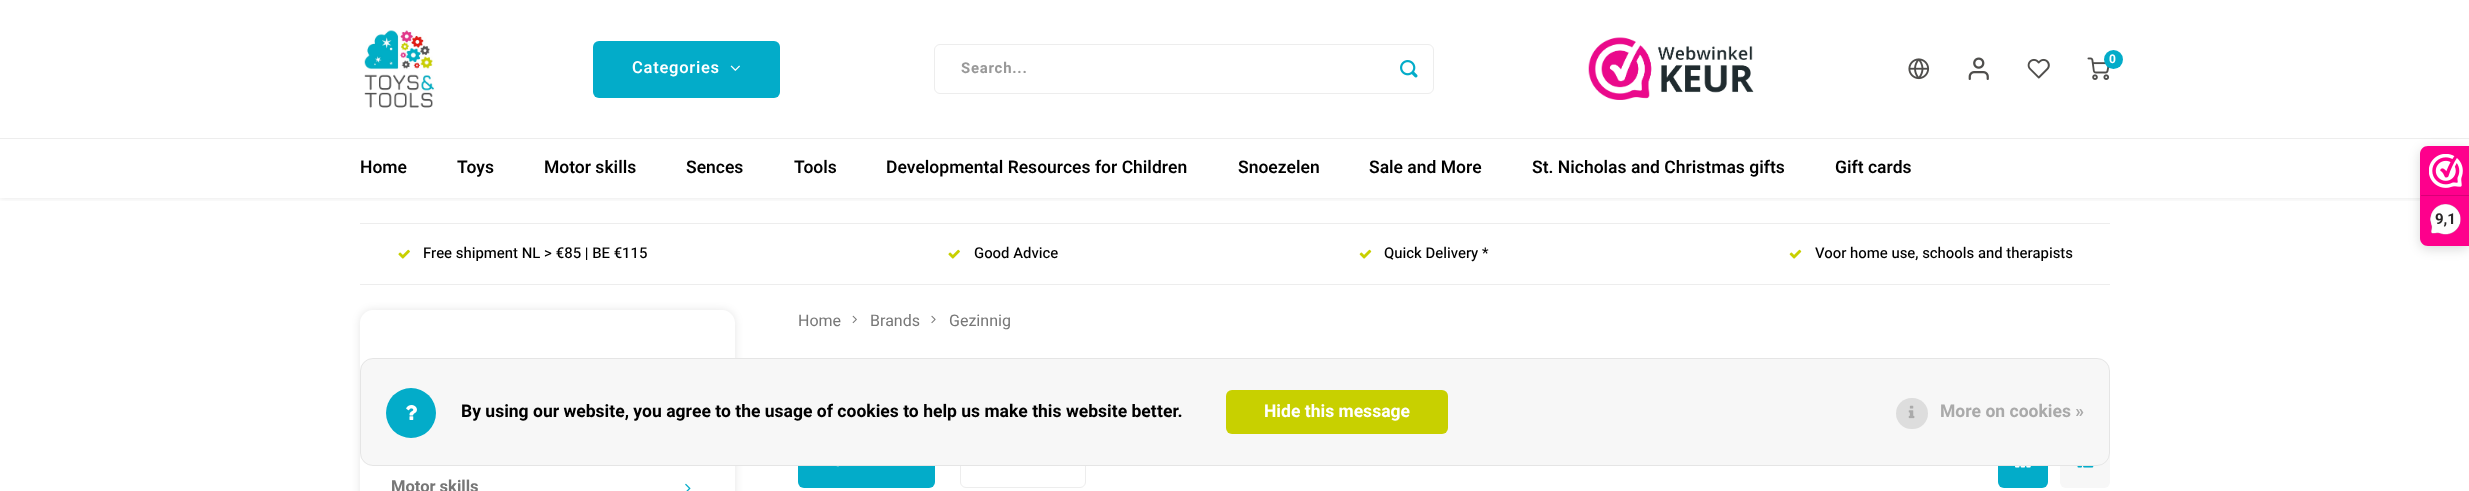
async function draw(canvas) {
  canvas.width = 2469
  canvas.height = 491
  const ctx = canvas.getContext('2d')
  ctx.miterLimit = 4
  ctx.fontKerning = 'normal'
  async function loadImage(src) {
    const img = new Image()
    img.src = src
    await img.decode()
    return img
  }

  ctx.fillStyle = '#fff'
  ctx.fillRect(0, 0, 2469, 491)
  ctx.save()
  ctx.beginPath()
  ctx.rect(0, 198, 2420, 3)
  ctx.clip()
  ctx.fillStyle = '#00000014'
  ctx.filter = 'blur(2.5px)'
  ctx.beginPath()
  ctx.rect(0, 1, 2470, 198)
  ctx.fill()
  ctx.filter = 'none'
  ctx.restore()
  ctx.drawImage(await loadImage('image0.png'), 364, 30, 71, 78)
  ctx.drawImage(await loadImage('image1.png'), 1588, 37, 166, 63)
  ctx.drawImage(await loadImage('image2.png'), 1908, 58, 22, 22)
  ctx.drawImage(await loadImage('image3.png'), 1968, 57, 21, 23)
  ctx.drawImage(await loadImage('image4.png'), 2027, 58, 23, 21)
  ctx.drawImage(await loadImage('image5.png'), 2087, 57, 23, 23)
  ctx.fillStyle = '#03acc9'
  ctx.beginPath()
  ctx.arc(2113.5, 59.5, 9.5, 0, 2 * Math.PI)
  ctx.fill()
  ctx.font = 'bold 12px Heebo'
  ctx.fillStyle = '#fff'
  ctx.fillText('0', 2109, 63)
  ctx.fillStyle = '#03acc9'
  ctx.beginPath()
  ctx.roundRect(593, 41, 187, 57, 6)
  ctx.fill()
  ctx.letterSpacing = '0.75px'
  ctx.font = '600 16.5px Heebo'
  ctx.fillStyle = '#fff'
  ctx.fillText('Categories', 632, 73)
  ctx.drawImage(await loadImage('image6.png'), 730, 65, 10, 6)
  ctx.beginPath()
  ctx.roundRect(934.5, 44.5, 499, 49, 5.5)
  ctx.strokeStyle = '#ededed'
  ctx.stroke()
  ctx.font = 'bold 14.9px Heebo'
  ctx.fillStyle = '#999'
  ctx.fillText('Search...', 961, 73)
  ctx.drawImage(await loadImage('image7.png'), 1400, 60, 18, 18)
  ctx.fillStyle = '#fff'
  ctx.fillRect(0, 197, 2469, 1)
  ctx.fillStyle = '#ededed'
  ctx.fillRect(0, 138, 2469, 1)
  ctx.letterSpacing = '0px'
  ctx.font = '600 17.5px Heebo'
  ctx.fillStyle = '#000'
  ctx.fillText('Home', 360, 173)
  ctx.fillText('Toys', 457, 173)
  ctx.fillText('Motor skills', 544, 173)
  ctx.fillText('Sences', 686, 173)
  ctx.fillText('Tools', 794, 173)
  ctx.fillText('Developmental Resources for Children', 886, 173)
  ctx.fillText('Snoezelen', 1238, 173)
  ctx.fillText('Sale and More', 1369, 173)
  ctx.fillText('St. Nicholas and Christmas gifts', 1532, 173)
  ctx.fillText('Gift cards', 1835, 173)
  ctx.fillStyle = '#00000026'
  ctx.filter = 'blur(6px)'
  ctx.beginPath()
  ctx.roundRect(2420, 149, 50, 100, 8)
  ctx.fill()
  ctx.filter = 'none'
  ctx.fillStyle = '#fe008c'
  ctx.beginPath()
  ctx.moveTo(2428, 146)
  ctx.lineTo(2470, 146)
  ctx.lineTo(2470, 246)
  ctx.lineTo(2428, 246)
  ctx.bezierCurveTo(2423.5, 246, 2420, 242.5, 2420, 238)
  ctx.lineTo(2420, 154)
  ctx.bezierCurveTo(2420, 149.5, 2423.5, 146, 2428, 146)
  ctx.closePath()
  ctx.fill()
  ctx.drawImage(await loadImage('image8.png'), 2429, 154, 34, 34)
  ctx.fillStyle = '#d80077'
  ctx.fillRect(2421, 195, 48, 1)
  ctx.drawImage(await loadImage('image9.png'), 2430, 204, 31, 31)
  ctx.font = 'bold 15px Roboto'
  ctx.fillStyle = '#272626'
  ctx.fillText('9,1', 2435, 224)
  ctx.fillStyle = '#ededed'
  ctx.fillRect(360, 223, 1750, 1)
  ctx.fillRect(360, 284, 1750, 1)
  ctx.drawImage(await loadImage('image10.png'), 398, 249, 12, 10)
  ctx.font = '500 14.9px Heebo'
  ctx.fillStyle = '#000'
  ctx.fillText('Free shipment NL > €85 | BE €115', 423, 258)
  ctx.drawImage(await loadImage('image10.png'), 948, 249, 12, 10)
  ctx.fillText('Good Advice', 974, 258)
  ctx.drawImage(await loadImage('image11.png'), 1359, 249, 13, 10)
  ctx.fillText('Quick Delivery *', 1384, 258)
  ctx.drawImage(await loadImage('image11.png'), 1789, 249, 13, 10)
  ctx.fillText('Voor home use, schools and therapists', 1815, 258)
  ctx.font = '16px Heebo'
  ctx.fillStyle = '#777'
  ctx.fillText('Home', 798, 326)
  ctx.drawImage(await loadImage('image12.png'), 852, 315, 5, 9)
  ctx.fillText('Brands', 870, 326)
  ctx.drawImage(await loadImage('image13.png'), 931, 315, 5, 9)
  ctx.fillText('Gezinnig', 949, 326)
  ctx.fillStyle = '#03acc9'
  ctx.beginPath()
  ctx.roundRect(798, 438, 137, 50, 6)
  ctx.fill()
  ctx.drawImage(await loadImage('image14.png'), 836, 466, 3, 1)
  ctx.beginPath()
  ctx.roundRect(960.5, 438.5, 125, 49, 5.5)
  ctx.stroke()
  ctx.beginPath()
  ctx.roundRect(1998, 438, 50, 50, 6)
  ctx.fill()
  ctx.drawImage(await loadImage('image15.png'), 2015, 466, 16, 2)
  ctx.fillStyle = '#f7f7f7'
  ctx.beginPath()
  ctx.roundRect(2060, 438, 50, 50, 6)
  ctx.fill()
  ctx.drawImage(await loadImage('image16.png'), 2077, 466, 17, 2)
  ctx.save()
  ctx.beginPath()
  ctx.moveTo(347, 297)
  ctx.lineTo(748, 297)
  ctx.lineTo(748, 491)
  ctx.lineTo(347, 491)
  ctx.closePath()
  ctx.moveTo(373, 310)
  ctx.lineTo(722, 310)
  ctx.bezierCurveTo(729, 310, 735, 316, 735, 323)
  ctx.lineTo(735, 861)
  ctx.bezierCurveTo(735, 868, 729, 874, 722, 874)
  ctx.lineTo(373, 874)
  ctx.bezierCurveTo(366, 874, 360, 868, 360, 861)
  ctx.lineTo(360, 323)
  ctx.bezierCurveTo(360, 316, 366, 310, 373, 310)
  ctx.closePath()
  ctx.clip('evenodd')
  ctx.fillStyle = '#0000001a'
  ctx.filter = 'blur(4px)'
  ctx.beginPath()
  ctx.roundRect(360, 310, 375, 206, 13)
  ctx.fill()
  ctx.filter = 'none'
  ctx.restore()
  ctx.font = 'bold 16.5px Heebo'
  ctx.fillStyle = '#777'
  ctx.fillText('Motor skills', 391, 492)
  ctx.drawImage(await loadImage('image17.png'), 685, 483, 6, 8)
  ctx.fillStyle = '#f7f7f7'
  ctx.beginPath()
  ctx.roundRect(360, 358, 1750, 108, 13)
  ctx.fill()
  ctx.beginPath()
  ctx.roundRect(360.5, 358.5, 1749, 107, 12.5)
  ctx.strokeStyle = '#00000012'
  ctx.stroke()
  ctx.fillStyle = '#03acc9'
  ctx.beginPath()
  ctx.arc(411, 413, 25, 0, 2 * Math.PI)
  ctx.fill()
  ctx.drawImage(await loadImage('image18.png'), 406, 405, 11, 15)
  ctx.font = 'bold 17.5px Heebo'
  ctx.fillStyle = '#000'
  ctx.fillText('By using our website, you agree to the usage of cookies to help us make this website better.', 461, 417)
  ctx.fillStyle = '#c8d000'
  ctx.beginPath()
  ctx.roundRect(1226, 390, 222, 44, 6)
  ctx.fill()
  ctx.fillStyle = '#fff'
  ctx.fillText('Hide this message', 1264, 417)
  ctx.fillStyle = '#ddd'
  ctx.beginPath()
  ctx.roundRect(1896, 398, 32, 31, 15.5)
  ctx.fill()
  ctx.drawImage(await loadImage('image19.png'), 1908, 405, 7, 14)
  ctx.fillStyle = '#aaa'
  ctx.fillText('More on cookies »', 1940, 417)
}

draw(document.querySelector('canvas'))
